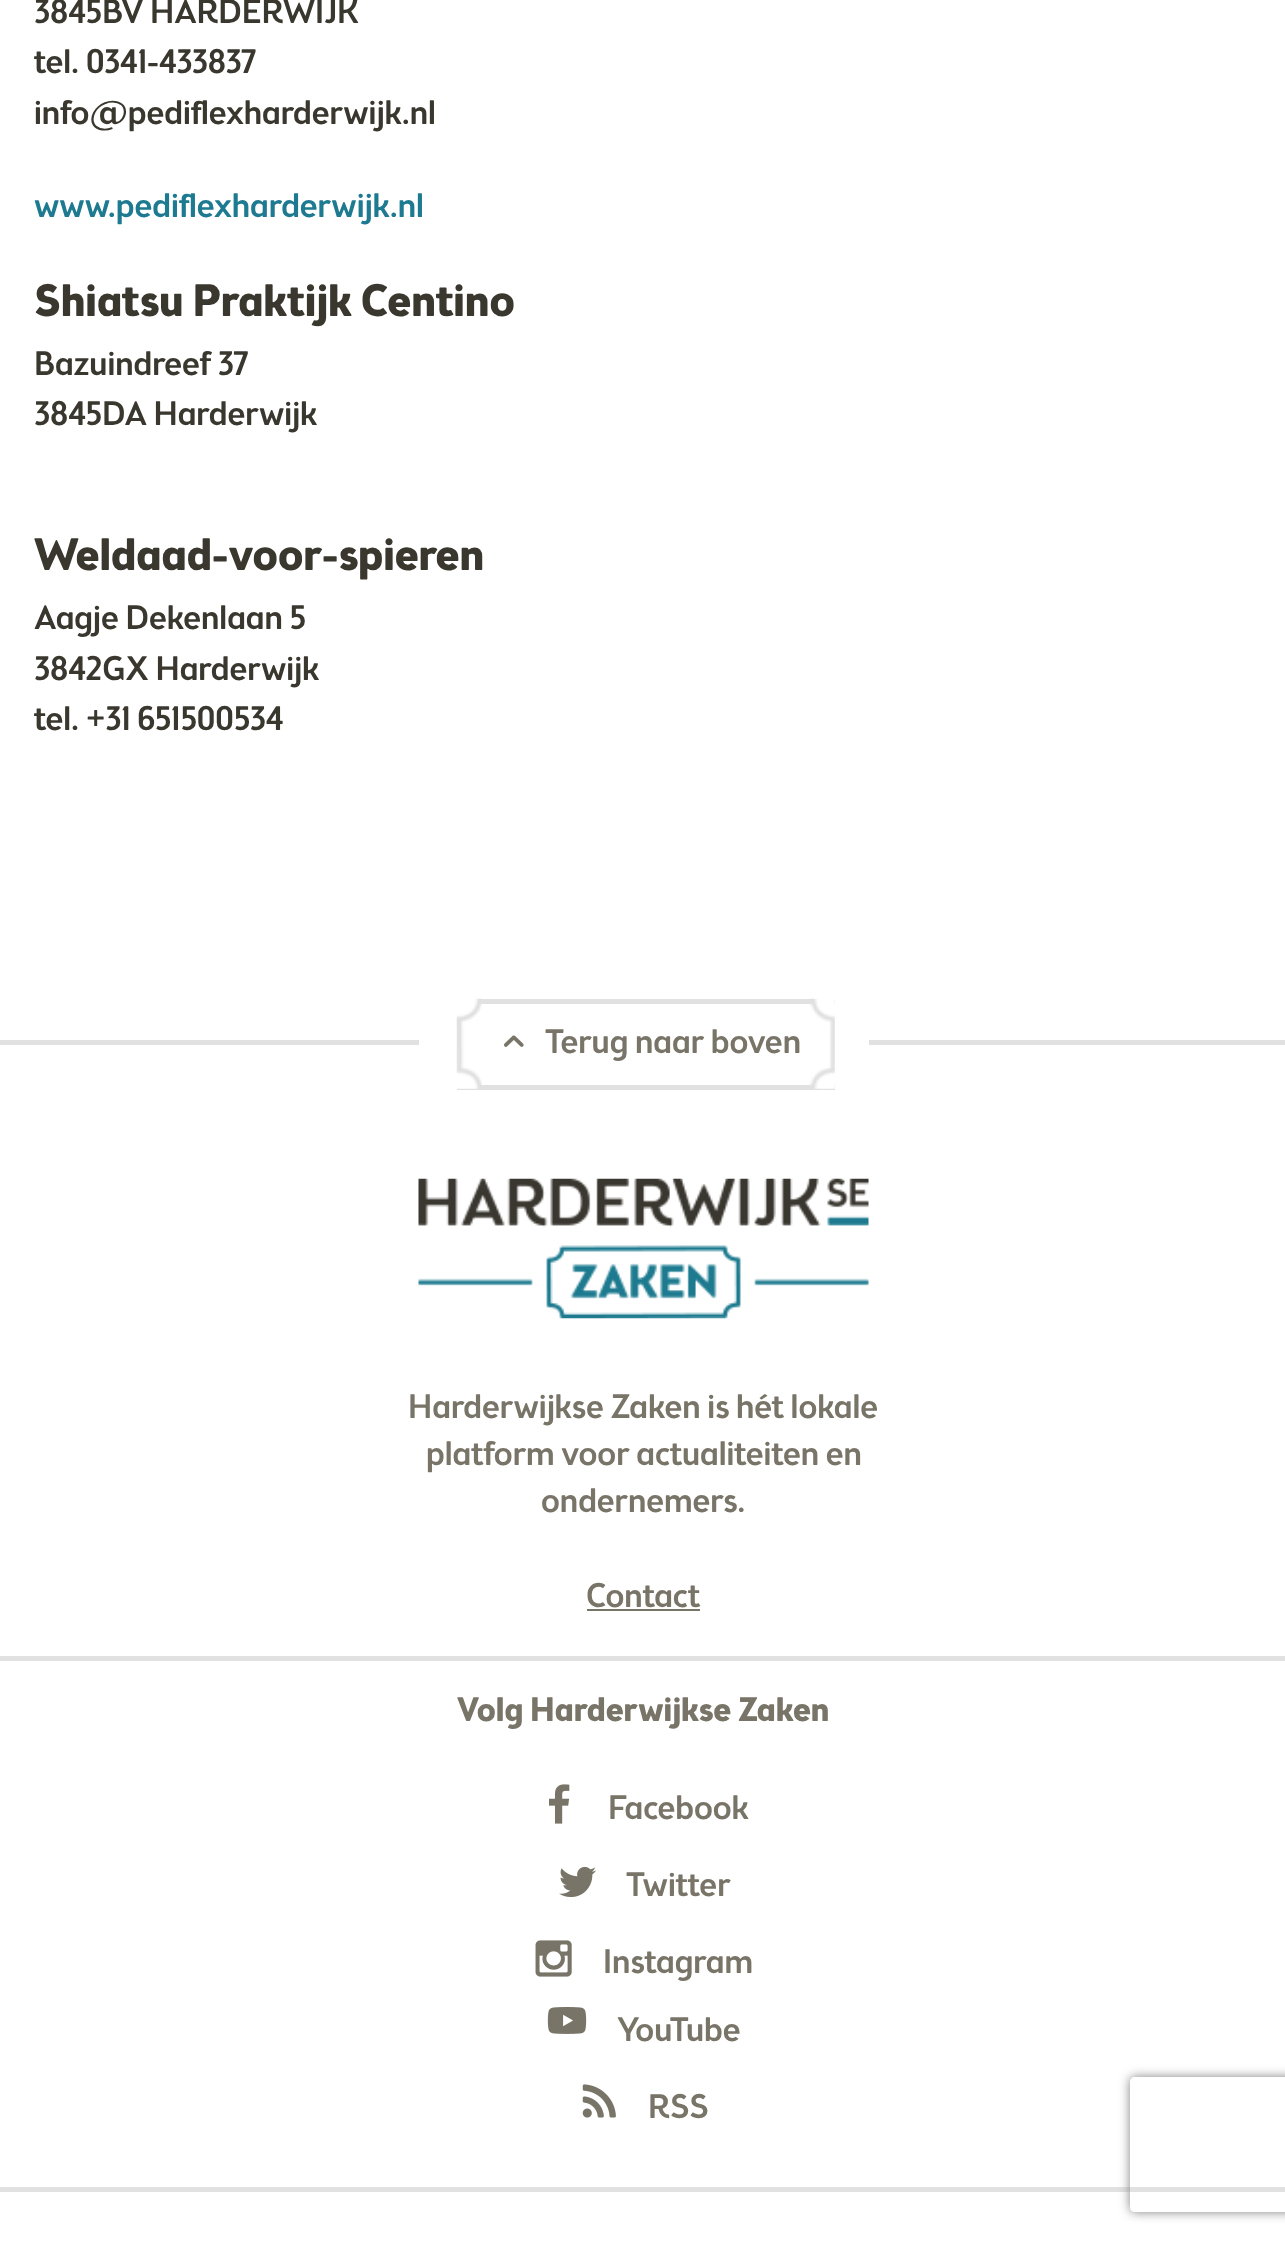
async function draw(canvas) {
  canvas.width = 1285
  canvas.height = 2243
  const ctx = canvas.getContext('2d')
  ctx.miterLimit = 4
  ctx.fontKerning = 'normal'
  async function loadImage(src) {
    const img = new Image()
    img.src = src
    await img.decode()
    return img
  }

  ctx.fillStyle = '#fff'
  ctx.fillRect(0, 0, 1285, 2243)
  ctx.font = '500 33.75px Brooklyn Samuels'
  ctx.fillStyle = '#3a372f'
  ctx.fillText('3845BV HARDERWIJK', 34, 23)
  ctx.save()
  ctx.beginPath()
  ctx.rect(34, 0, 1219, 234)
  ctx.clip()
  ctx.fillText('tel.', 34, 73)
  ctx.restore()
  ctx.fillText('0341-433837', 86, 73)
  ctx.fillText('info@pediflexharderwijk.nl', 34, 124)
  ctx.fillStyle = '#1e7a90'
  ctx.fillText('www.pediflexharderwijk.nl', 34, 217)
  ctx.font = 'bold 45px Brooklyn Samuels'
  ctx.fillStyle = '#3a372f'
  ctx.fillText('Shiatsu Praktijk Centino', 34, 316)
  ctx.font = '500 33.75px Brooklyn Samuels'
  ctx.fillText('Bazuindreef 37', 34, 375)
  ctx.fillText('3845DA Harderwijk', 34, 425)
  ctx.font = 'bold 45px Brooklyn Samuels'
  ctx.fillText('Weldaad-voor-spieren', 34, 570)
  ctx.font = '500 33.75px Brooklyn Samuels'
  ctx.fillText('Aagje Dekenlaan 5', 34, 629)
  ctx.fillText('3842GX Harderwijk', 34, 680)
  ctx.save()
  ctx.beginPath()
  ctx.rect(34, 488, 1219, 304)
  ctx.clip()
  ctx.fillText('tel.', 34, 730)
  ctx.restore()
  ctx.fillText('+31 651500534', 86, 730)
  ctx.fillStyle = '#e2e1e1'
  ctx.fillRect(0, 1040, 1285, 5)
  ctx.fillStyle = '#fff'
  ctx.fillRect(419, 1040, 450, 5)
  ctx.fillStyle = '#e2e1e1'
  ctx.fillRect(481, 999, 354, 5)
  ctx.fillRect(457, 1085, 378, 5)
  ctx.drawImage(await loadImage('image0.png'), 456, 998, 26, 91)
  ctx.drawImage(await loadImage('image1.png'), 504, 1035, 20, 12)
  ctx.fillStyle = '#797468'
  ctx.fillText('Terug naar boven', 545, 1053)
  ctx.drawImage(await loadImage('image2.png'), 810, 998, 25, 91)
  ctx.fillStyle = '#e2e1e1'
  ctx.fillRect(0, 1656, 1285, 5)
  ctx.drawImage(await loadImage('image3.png'), 418, 1178, 451, 141)
  ctx.fillStyle = '#797468'
  ctx.fillText('Harderwijkse Zaken is hét lokale', 408, 1418)
  ctx.fillText('platform voor actualiteiten en', 426, 1465)
  ctx.fillText('ondernemers.', 541, 1512)
  ctx.fillText('Contact', 586, 1607)
  ctx.fillRect(587, 1609, 113, 2)
  ctx.fillStyle = '#e2e1e1'
  ctx.fillRect(0, 2187, 1285, 5)
  ctx.font = 'bold 33.75px Brooklyn Samuels'
  ctx.fillStyle = '#797468'
  ctx.fillText('Volg Harderwijkse Zaken', 457, 1721)
  ctx.drawImage(await loadImage('image4.png'), 549, 1784, 21, 40)
  ctx.font = '500 33.75px Brooklyn Samuels'
  ctx.fillText('Facebook', 608, 1819)
  ctx.drawImage(await loadImage('image5.png'), 559, 1866, 37, 32)
  ctx.fillText('Twitter', 626, 1896)
  ctx.drawImage(await loadImage('image6.png'), 535, 1940, 37, 37)
  ctx.fillText('Instagram', 603, 1973)
  ctx.drawImage(await loadImage('image7.png'), 547, 2007, 40, 27)
  ctx.fillText('YouTube', 617, 2041)
  ctx.drawImage(await loadImage('image8.png'), 582, 2084, 34, 34)
  ctx.fillText('RSS', 648, 2118)
  ctx.save()
  ctx.beginPath()
  ctx.moveTo(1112, 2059)
  ctx.lineTo(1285, 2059)
  ctx.lineTo(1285, 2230)
  ctx.lineTo(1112, 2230)
  ctx.closePath()
  ctx.moveTo(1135, 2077)
  ctx.lineTo(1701, 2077)
  ctx.bezierCurveTo(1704, 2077, 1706, 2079, 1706, 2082)
  ctx.lineTo(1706, 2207)
  ctx.bezierCurveTo(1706, 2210, 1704, 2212, 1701, 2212)
  ctx.lineTo(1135, 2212)
  ctx.bezierCurveTo(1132, 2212, 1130, 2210, 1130, 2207)
  ctx.lineTo(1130, 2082)
  ctx.bezierCurveTo(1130, 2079, 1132, 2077, 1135, 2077)
  ctx.closePath()
  ctx.clip('evenodd')
  ctx.fillStyle = '#808080'
  ctx.filter = 'blur(5.5px)'
  ctx.beginPath()
  ctx.roundRect(1130, 2077, 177, 135, 5)
  ctx.fill()
  ctx.filter = 'none'
  ctx.restore()
}

draw(document.querySelector('canvas'))
